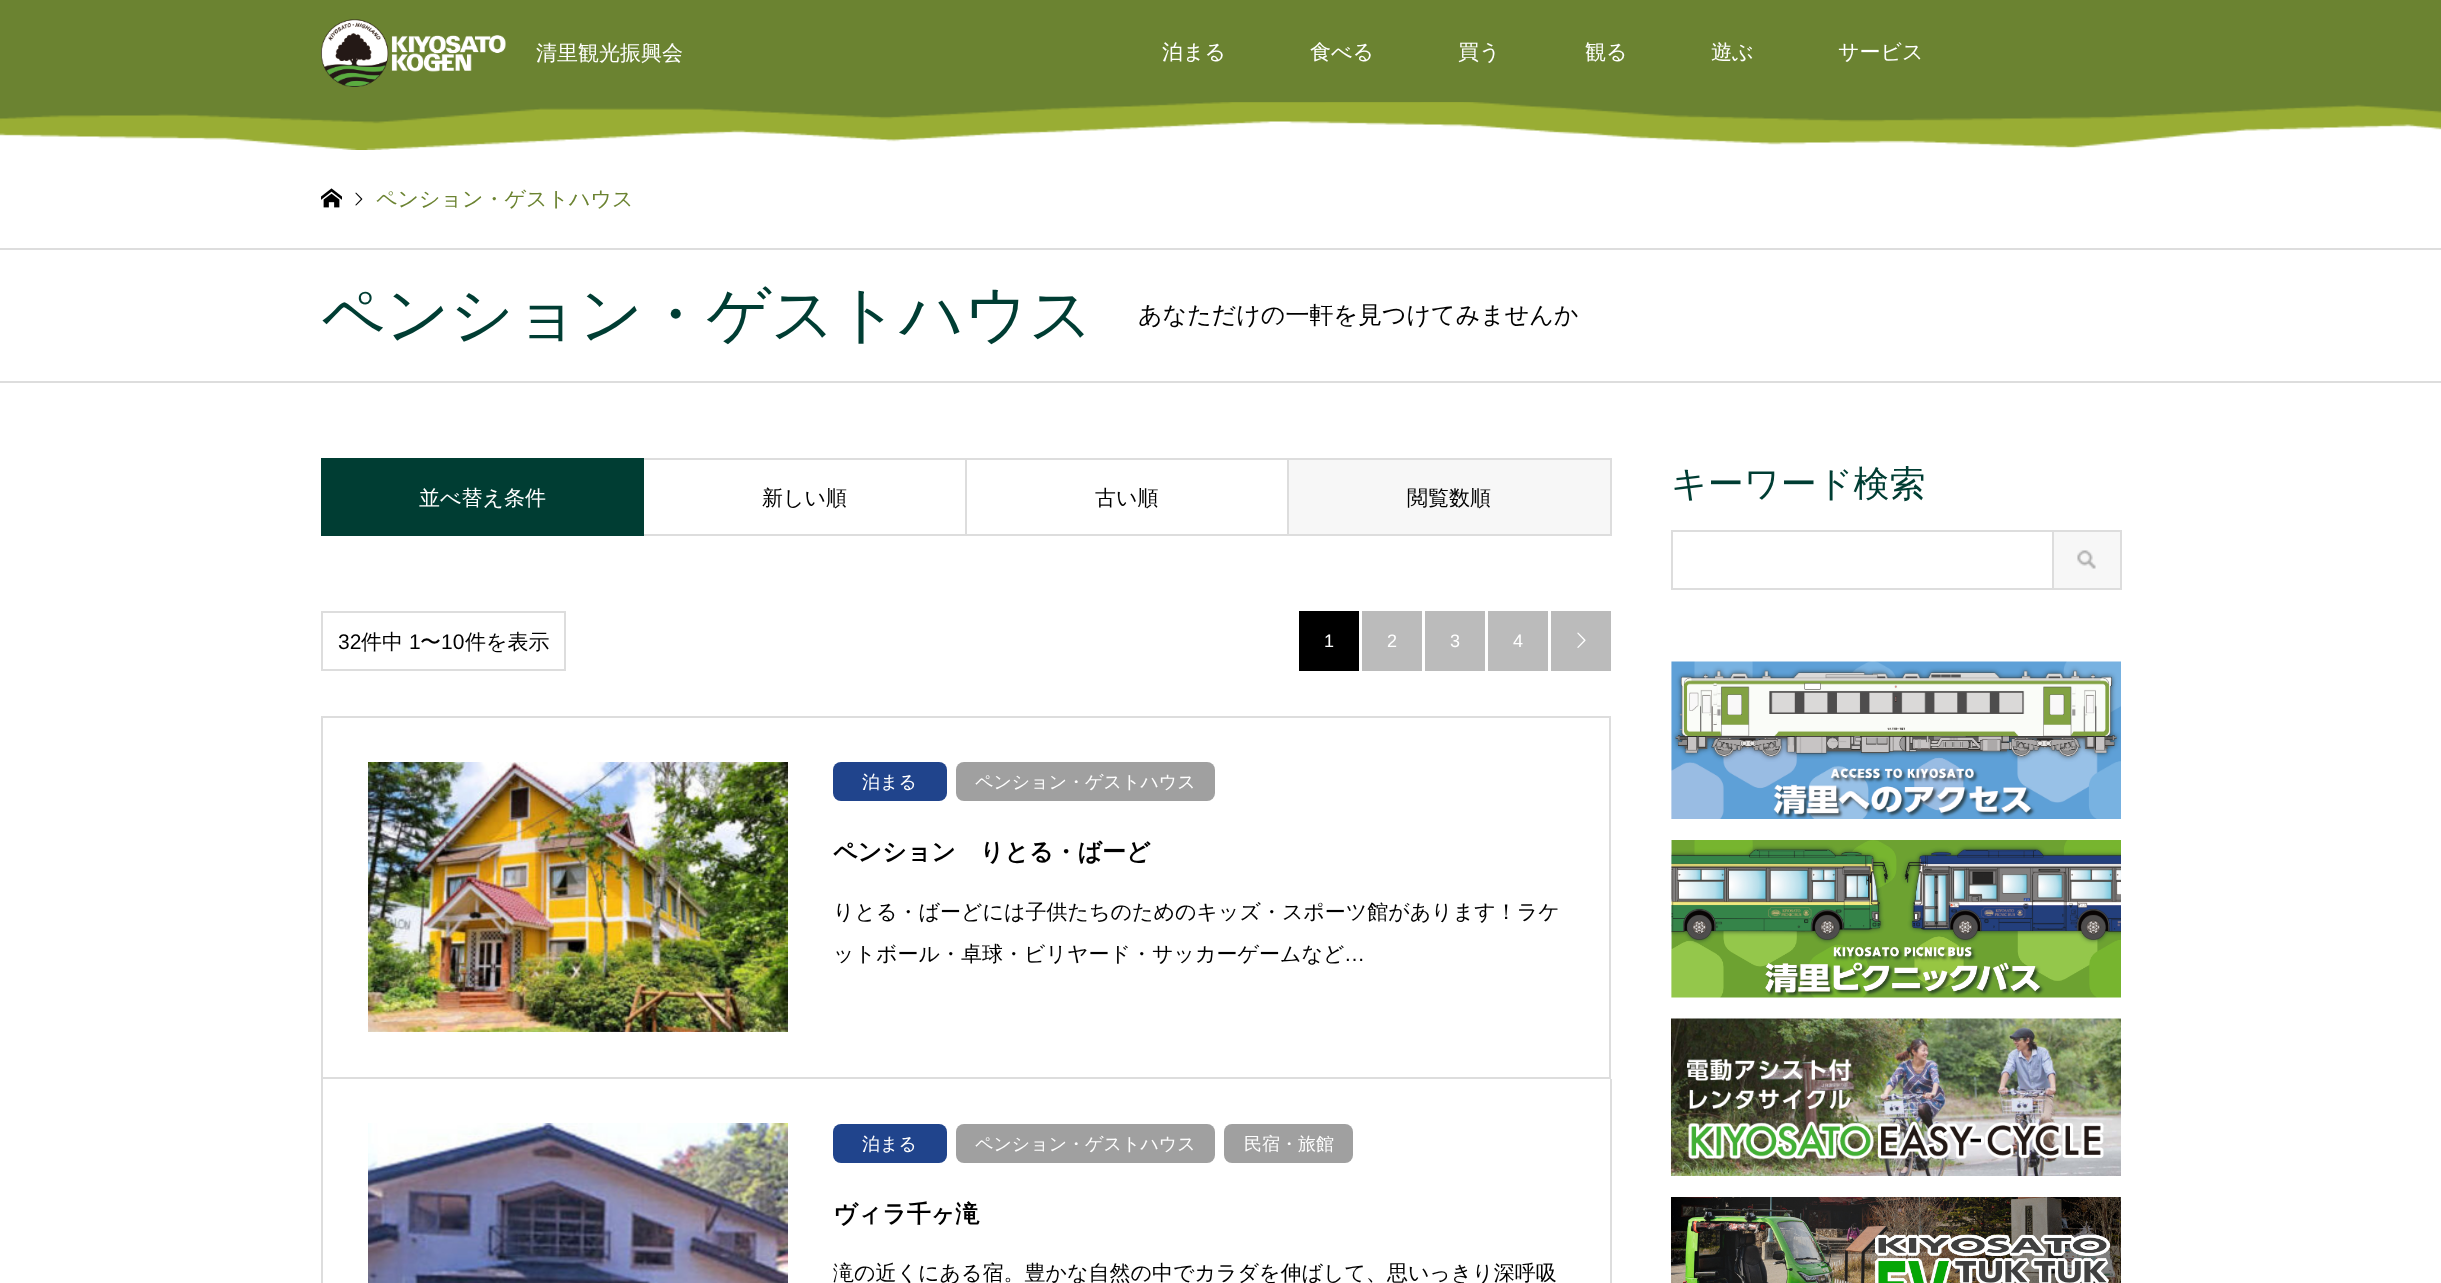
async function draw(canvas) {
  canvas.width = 2441
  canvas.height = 1283
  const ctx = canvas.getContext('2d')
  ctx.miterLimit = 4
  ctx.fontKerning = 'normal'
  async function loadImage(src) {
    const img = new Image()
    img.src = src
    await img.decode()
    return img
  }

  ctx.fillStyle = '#fff'
  ctx.fillRect(0, 0, 2441, 1283)
  ctx.drawImage(await loadImage('image0.png'), 0, 102, 2441, 48)
  ctx.fillStyle = '#6b8331'
  ctx.fillRect(0, 0, 2441, 102)
  ctx.drawImage(await loadImage('image1.png'), 321, 19, 185, 68)
  ctx.font = '500 21px WenQuanYi Zen Hei'
  ctx.fillStyle = '#fff'
  ctx.fillText('清里観光振興会', 536, 60)
  ctx.fillText('泊まる', 1162, 59)
  ctx.fillText('食べる', 1310, 59)
  ctx.fillText('買う', 1458, 59)
  ctx.fillText('観る', 1585, 59)
  ctx.fillText('遊ぶ', 1711, 59)
  ctx.fillText('サービス', 1838, 59)
  ctx.fillStyle = '#ddd'
  ctx.fillRect(0, 248, 2441, 2)
  ctx.drawImage(await loadImage('image2.png'), 321, 188, 21, 20)
  ctx.drawImage(await loadImage('image3.png'), 355, 192, 8, 14)
  ctx.fillStyle = '#6b8331'
  ctx.fillText('ペンション・ゲストハウス', 376, 206)
  ctx.fillStyle = '#ddd'
  ctx.fillRect(0, 381, 2441, 2)
  ctx.font = '500 63px WenQuanYi Zen Hei'
  ctx.fillStyle = '#003d33'
  ctx.fillText('ペンション・ゲストハウス', 321, 336)
  ctx.font = '500 24px WenQuanYi Zen Hei'
  ctx.fillStyle = '#000'
  ctx.fillText('あなただけの一軒を見つけてみませんか', 1138, 323)
  ctx.fillStyle = '#003d33'
  ctx.fillRect(321, 458, 323, 78)
  ctx.font = '500 21px WenQuanYi Zen Hei'
  ctx.fillStyle = '#fff'
  ctx.fillText('並べ替え条件', 419, 505)
  ctx.fillStyle = '#ddd'
  ctx.fillRect(644, 458, 322, 2)
  ctx.fillRect(965, 458, 2, 78)
  ctx.fillRect(644, 534, 322, 2)
  ctx.fillStyle = '#000'
  ctx.fillText('新しい順', 762, 505)
  ctx.fillStyle = '#ddd'
  ctx.fillRect(966, 458, 645, 2)
  ctx.fillRect(1287, 458, 2, 78)
  ctx.fillRect(966, 534, 323, 2)
  ctx.fillStyle = '#000'
  ctx.fillText('古い順', 1095, 505)
  ctx.fillStyle = '#f7f7f7'
  ctx.fillRect(1289, 460, 321, 74)
  ctx.fillStyle = '#ddd'
  ctx.fillRect(1610, 458, 2, 78)
  ctx.fillRect(1289, 534, 322, 2)
  ctx.fillStyle = '#000'
  ctx.fillText('閲覧数順', 1407, 505)
  ctx.strokeStyle = '#ddd'
  ctx.lineWidth = 2
  ctx.strokeRect(322, 612, 243, 58)
  ctx.font = '21px Liberation Sans'
  ctx.fillText('32', 338, 649)
  ctx.font = '500 21px WenQuanYi Zen Hei'
  ctx.fillText('件中', 361, 649)
  ctx.font = '21px Liberation Sans'
  ctx.fillText('1', 409, 649)
  ctx.font = '500 21px WenQuanYi Zen Hei'
  ctx.fillText('〜', 420, 649)
  ctx.font = '21px Liberation Sans'
  ctx.fillText('10', 441, 649)
  ctx.font = '500 21px WenQuanYi Zen Hei'
  ctx.fillText('件を表示', 465, 649)
  ctx.fillRect(1299, 611, 60, 60)
  ctx.font = '18px Liberation Sans'
  ctx.fillStyle = '#fff'
  ctx.fillText('1', 1324, 647)
  ctx.fillStyle = '#bbb'
  ctx.fillRect(1362, 611, 60, 60)
  ctx.fillStyle = '#fff'
  ctx.fillText('2', 1387, 647)
  ctx.fillStyle = '#bbb'
  ctx.fillRect(1425, 611, 60, 60)
  ctx.fillStyle = '#fff'
  ctx.fillText('3', 1450, 647)
  ctx.fillStyle = '#bbb'
  ctx.fillRect(1488, 611, 60, 60)
  ctx.fillStyle = '#fff'
  ctx.fillText('4', 1513, 647)
  ctx.fillStyle = '#bbb'
  ctx.fillRect(1551, 611, 60, 60)
  ctx.drawImage(await loadImage('image4.png'), 1577, 632, 9, 16)
  ctx.strokeRect(322, 717, 1288, 361)
  ctx.drawImage(await loadImage('image5.png'), 368, 762, 420, 270)
  ctx.fillStyle = '#20448c'
  ctx.beginPath()
  ctx.roundRect(833, 762, 114, 39, 8)
  ctx.fill()
  ctx.font = '500 18px WenQuanYi Zen Hei'
  ctx.fillStyle = '#fff'
  ctx.fillText('泊まる', 862, 788)
  ctx.fillStyle = '#a0a0a0'
  ctx.beginPath()
  ctx.roundRect(956, 762, 259, 39, 8)
  ctx.fill()
  ctx.fillStyle = '#fff'
  ctx.fillText('ペンション・ゲストハウス', 975, 788)
  ctx.font = 'bold 24px WenQuanYi Zen Hei'
  ctx.fillStyle = '#000'
  ctx.fillText('ペンション　りとる・ばーど', 833, 860)
  ctx.font = '500 21px WenQuanYi Zen Hei'
  ctx.fillText('りとる・ばーどには子供たちのためのキッズ・スポーツ館があります！ラケ', 833, 919)
  ctx.fillText('ットボール・卓球・ビリヤード・サッカーゲームなど', 833, 961)
  ctx.font = '21px Liberation Sans'
  ctx.fillText('…', 1344, 961)
  ctx.fillStyle = '#ddd'
  ctx.fillRect(1610, 1079, 2, 204)
  ctx.fillRect(321, 1079, 2, 204)
  ctx.drawImage(await loadImage('image6.png'), 368, 1123, 420, 160)
  ctx.fillStyle = '#20448c'
  ctx.beginPath()
  ctx.roundRect(833, 1124, 114, 39, 8)
  ctx.fill()
  ctx.font = '500 18px WenQuanYi Zen Hei'
  ctx.fillStyle = '#fff'
  ctx.fillText('泊まる', 862, 1150)
  ctx.fillStyle = '#a0a0a0'
  ctx.beginPath()
  ctx.roundRect(956, 1124, 259, 39, 8)
  ctx.fill()
  ctx.fillStyle = '#fff'
  ctx.fillText('ペンション・ゲストハウス', 975, 1150)
  ctx.fillStyle = '#a0a0a0'
  ctx.beginPath()
  ctx.roundRect(1224, 1124, 129, 39, 8)
  ctx.fill()
  ctx.fillStyle = '#fff'
  ctx.fillText('民宿・旅館', 1244, 1150)
  ctx.font = 'bold 24px WenQuanYi Zen Hei'
  ctx.fillStyle = '#000'
  ctx.fillText('ヴィラ千ヶ滝', 833, 1222)
  ctx.font = '500 21px WenQuanYi Zen Hei'
  ctx.fillText('滝の近くにある宿。豊かな自然の中でカラダを伸ばして、思いっきり深呼吸', 833, 1280)
  ctx.font = '500 36px WenQuanYi Zen Hei'
  ctx.fillStyle = '#003d33'
  ctx.fillText('キーワード検索', 1671, 496)
  ctx.strokeRect(1672, 531, 381, 58)
  ctx.fillStyle = '#f7f7f7'
  ctx.fillRect(2054, 532, 66, 56)
  ctx.drawImage(await loadImage('image7.png'), 2077, 550, 19, 19)
  ctx.fillStyle = '#ddd'
  ctx.fillRect(2054, 530, 67, 2)
  ctx.fillRect(2120, 530, 2, 60)
  ctx.fillRect(2054, 588, 67, 2)
  ctx.drawImage(await loadImage('image8.png'), 1671, 661, 450, 158)
  ctx.drawImage(await loadImage('image9.png'), 1671, 840, 450, 158)
  ctx.drawImage(await loadImage('image10.png'), 1671, 1018, 450, 158)
  ctx.drawImage(await loadImage('image11.png'), 1671, 1197, 450, 86)
}

draw(document.querySelector('canvas'))
